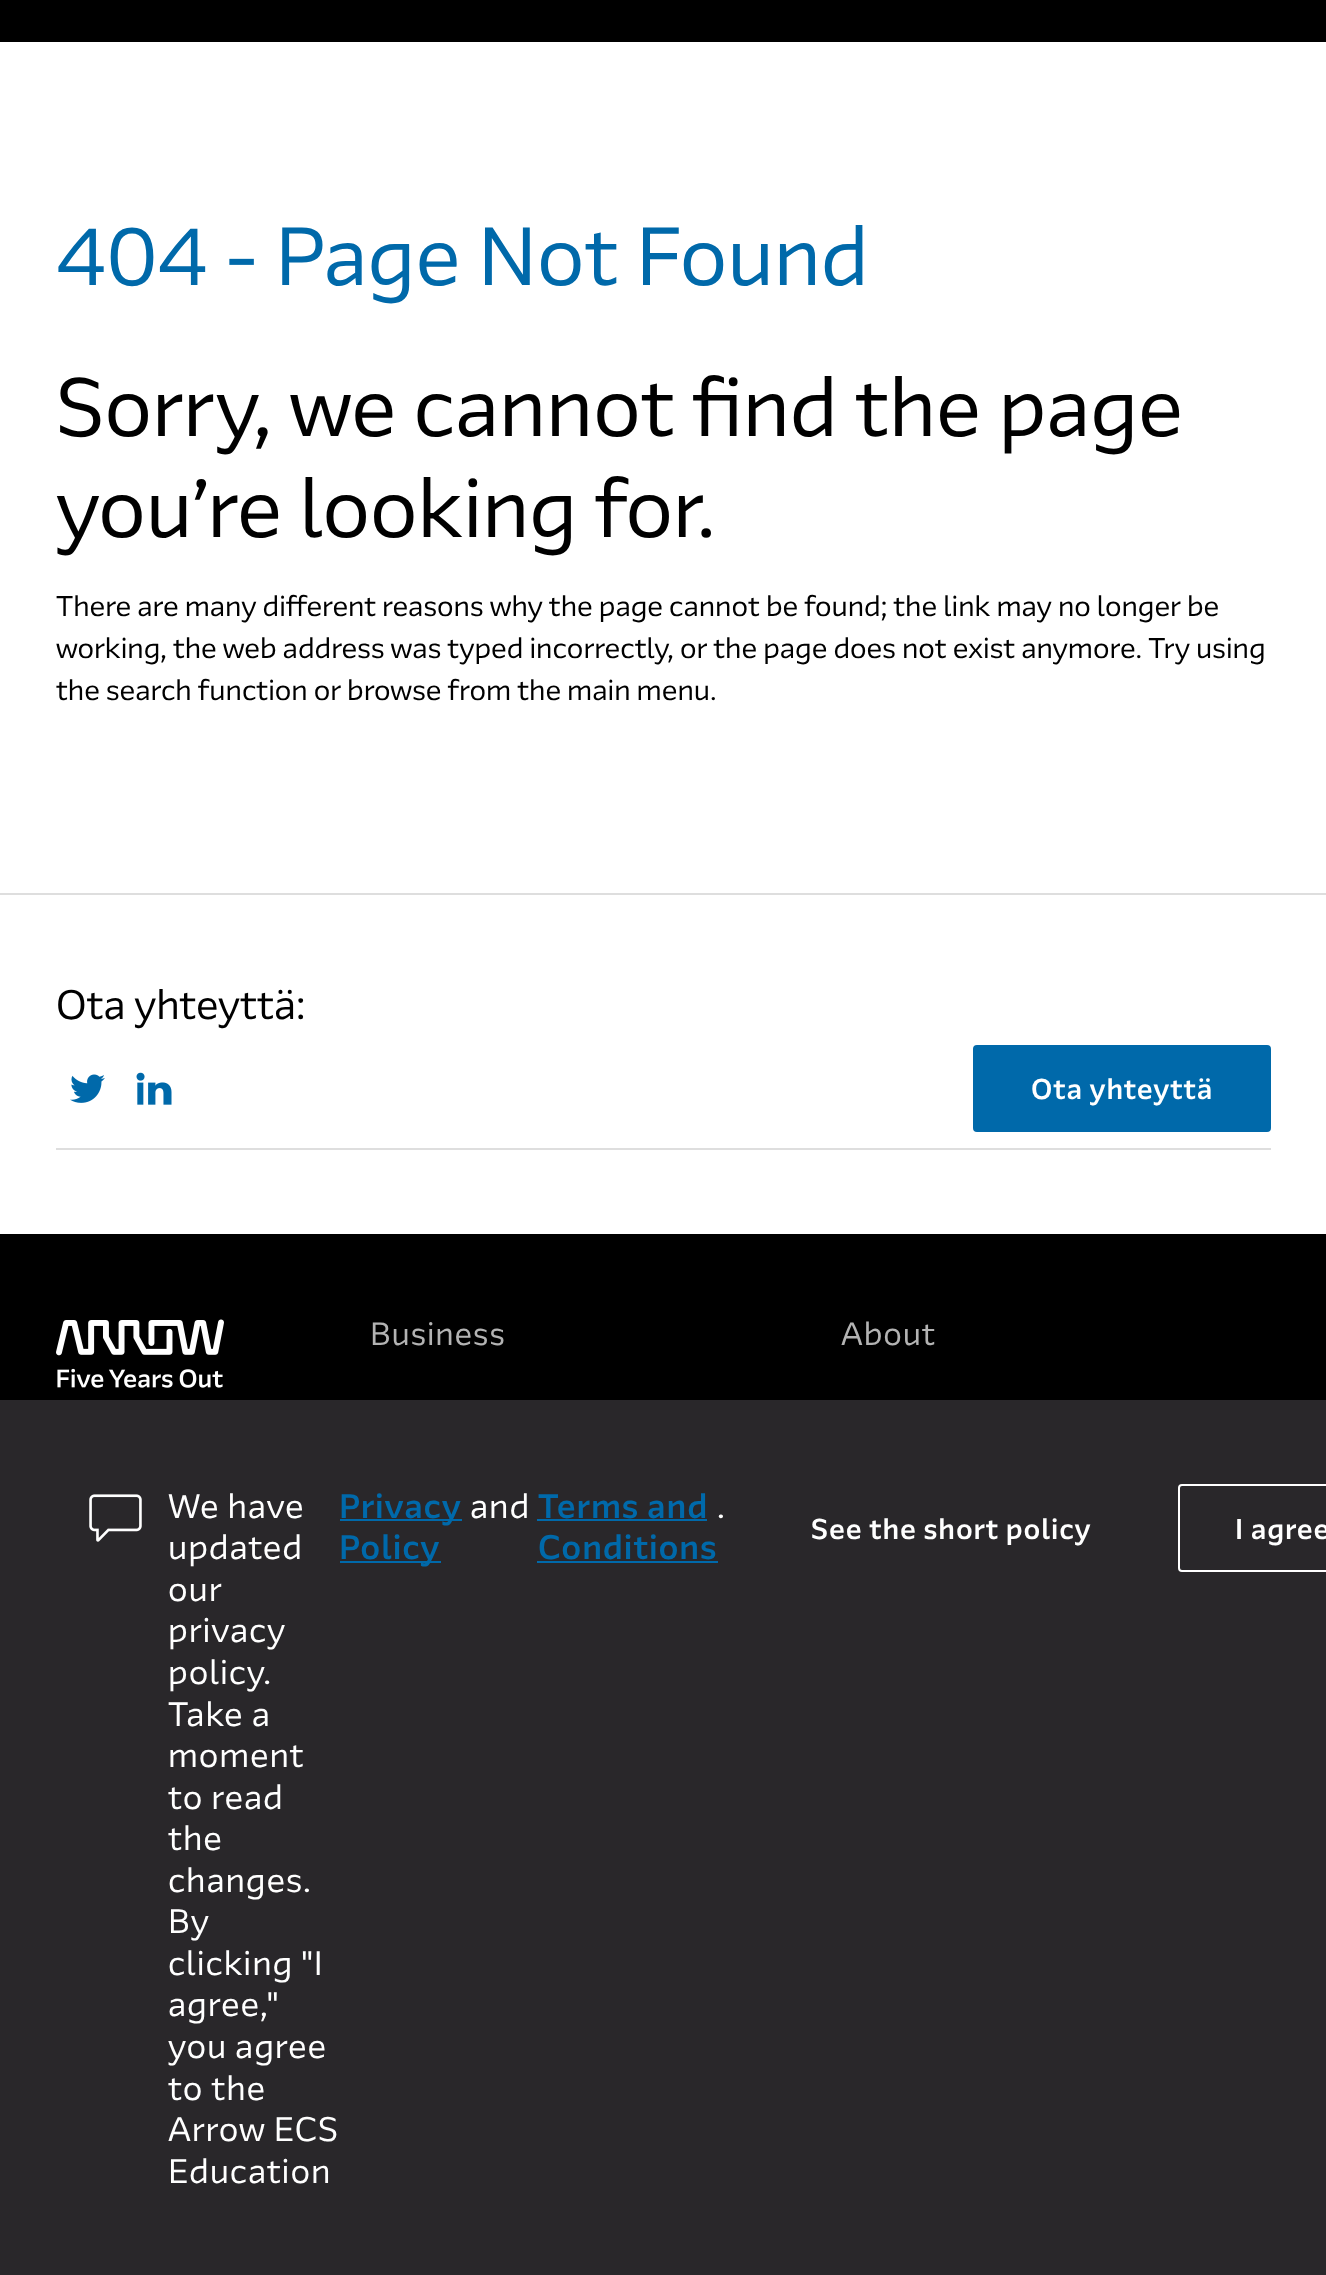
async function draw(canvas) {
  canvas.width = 1326
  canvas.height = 2275
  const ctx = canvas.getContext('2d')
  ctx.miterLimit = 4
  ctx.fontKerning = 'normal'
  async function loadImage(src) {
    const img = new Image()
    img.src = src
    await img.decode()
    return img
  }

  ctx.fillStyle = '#fff'
  ctx.fillRect(0, 0, 1326, 2275)
  ctx.fillStyle = '#000'
  ctx.fillRect(0, 0, 1326, 42)
  ctx.font = '80.5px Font'
  ctx.fillStyle = '#0069aa'
  ctx.fillText('404 - Page Not Found', 56, 285)
  ctx.fillStyle = '#000'
  ctx.fillText('Sorry, we cannot find the page', 56, 436)
  ctx.fillText('you’re looking for.', 56, 537)
  ctx.font = '28px Font'
  ctx.fillText('There are many different reasons why the page cannot be found; the link may no longer be', 56, 616)
  ctx.fillText('working, the web address was typed incorrectly, or the page does not exist anymore. Try using', 56, 658)
  ctx.fillText('the search function or browse from the main menu.', 56, 700)
  ctx.fillStyle = '#dedede'
  ctx.fillRect(0, 893, 1326, 2)
  ctx.font = '40.25px Font'
  ctx.fillStyle = '#000'
  ctx.fillText('Ota yhteyttä:', 56, 1019)
  ctx.fillStyle = '#dedede'
  ctx.fillRect(56, 1148, 1215, 2)
  ctx.drawImage(await loadImage('image0.png'), 70, 1074, 35, 29)
  ctx.drawImage(await loadImage('image1.png'), 136, 1072, 36, 33)
  ctx.fillStyle = '#0069aa'
  ctx.beginPath()
  ctx.roundRect(974, 1046, 296, 85, 3)
  ctx.fill()
  ctx.strokeStyle = '#0069aa'
  ctx.lineWidth = 2
  ctx.stroke()
  ctx.letterSpacing = '0.9px'
  ctx.font = '500 28px Font'
  ctx.fillStyle = '#fff'
  ctx.fillText('Ota yhteyttä', 1031, 1099)
  ctx.fillStyle = '#000'
  ctx.fillRect(0, 1234, 1326, 166)
  ctx.drawImage(await loadImage('image2.png'), 56, 1319, 168, 69)
  ctx.font = '31.5px Font'
  ctx.fillStyle = '#b3b3b3'
  ctx.fillText('Business', 370, 1345)
  ctx.fillText('About', 841, 1345)
  ctx.fillStyle = '#29272a'
  ctx.fillRect(0, 1400, 1326, 875)
  ctx.drawImage(await loadImage('image3.png'), 89, 1494, 53, 48)
  ctx.font = '33.25px Font'
  ctx.fillStyle = '#fff'
  ctx.fillText('We have', 168, 1518)
  ctx.fillStyle = '#0069aa'
  ctx.fillRect(340, 1519, 122, 2)
  ctx.font = '500 33.25px Font'
  ctx.fillText('Privacy', 339, 1518)
  ctx.fillRect(340, 1561, 101, 2)
  ctx.fillText('Policy', 339, 1559)
  ctx.font = '33.25px Font'
  ctx.fillStyle = '#fff'
  ctx.fillText('and', 470, 1518)
  ctx.font = '500 33.25px Font'
  ctx.fillStyle = '#0069aa'
  ctx.fillText('Terms and', 538, 1518)
  ctx.fillRect(537, 1519, 170, 2)
  ctx.fillText('Conditions', 538, 1559)
  ctx.fillRect(537, 1561, 181, 2)
  ctx.font = '33.25px Font'
  ctx.fillStyle = '#fff'
  ctx.fillText('.', 717, 1518)
  ctx.fillText('updated', 168, 1559)
  ctx.fillText('our', 168, 1601)
  ctx.fillText('privacy', 168, 1642)
  ctx.fillText('policy.', 168, 1684)
  ctx.fillText('Take a', 168, 1726)
  ctx.fillText('moment', 168, 1767)
  ctx.fillText('to read', 168, 1809)
  ctx.fillText('the', 168, 1850)
  ctx.fillText('changes.', 168, 1892)
  ctx.fillText('By', 168, 1933)
  ctx.fillText('clicking "I', 168, 1975)
  ctx.fillText('agree,"', 168, 2016)
  ctx.fillText('you agree', 168, 2058)
  ctx.fillText('to the', 168, 2100)
  ctx.fillText('Arrow ECS', 168, 2141)
  ctx.fillText('Education', 168, 2183)
  ctx.font = '500 28px Font'
  ctx.fillText('See the short policy', 811, 1539)
  ctx.beginPath()
  ctx.roundRect(1179, 1485, 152, 86, 3)
  ctx.strokeStyle = '#fff'
  ctx.stroke()
  ctx.fillText('I agree', 1235, 1539)
}

draw(document.querySelector('canvas'))
